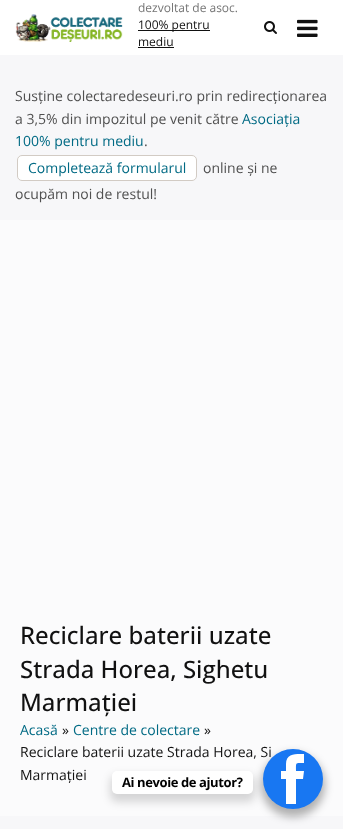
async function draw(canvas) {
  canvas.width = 343
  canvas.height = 829
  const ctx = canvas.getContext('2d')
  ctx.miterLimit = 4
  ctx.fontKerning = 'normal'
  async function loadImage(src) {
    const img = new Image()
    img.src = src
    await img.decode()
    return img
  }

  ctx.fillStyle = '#f7f7f9'
  ctx.fillRect(0, 0, 343, 829)
  ctx.fillStyle = '#fff'
  ctx.fillRect(0, 0, 343, 55)
  ctx.drawImage(await loadImage('image0.png'), 15, 14, 108, 28)
  ctx.font = '12px Open Sans'
  ctx.fillStyle = '#757575'
  ctx.fillText('dezvoltat de asoc.', 138, 12)
  ctx.fillStyle = '#111'
  ctx.fillRect(138, 30, 72, 1)
  ctx.fillText('100% pentru', 138, 29)
  ctx.fillText('mediu', 138, 46)
  ctx.fillRect(138, 47, 36, 1)
  ctx.drawImage(await loadImage('image1.png'), 264, 21, 13, 13)
  ctx.drawImage(await loadImage('image2.png'), 297, 19, 21, 18)
  ctx.font = '14px Open Sans'
  ctx.fillStyle = '#505050'
  ctx.fillText('Susține colectaredeseuri.ro prin redirecționarea', 15, 101)
  ctx.fillText('a 3,5% din impozitul pe venit către', 15, 124)
  ctx.fillStyle = '#006a84'
  ctx.fillText('Asociația', 242, 124)
  ctx.fillText('100% pentru mediu', 15, 146)
  ctx.fillStyle = '#505050'
  ctx.fillText('.', 144, 146)
  ctx.fillStyle = '#fff'
  ctx.beginPath()
  ctx.roundRect(17.5, 155.5, 179, 25, 4.5)
  ctx.fill()
  ctx.strokeStyle = '#d2cbc4'
  ctx.stroke()
  ctx.fillStyle = '#006a84'
  ctx.fillText('Completează formularul', 28, 173)
  ctx.fillStyle = '#505050'
  ctx.fillText('online și ne', 203, 173)
  ctx.fillText('ocupăm noi de restul!', 15, 199)
  ctx.fillStyle = '#fbfbfc'
  ctx.fillRect(0, 220, 343, 596)
  ctx.font = '500 24px Open Sans'
  ctx.fillStyle = '#111'
  ctx.fillText('Reciclare baterii uzate', 20, 644)
  ctx.fillText('Strada Horea, Sighetu', 20, 678)
  ctx.fillText('Marmației', 20, 711)
  ctx.font = '14px Open Sans'
  ctx.fillStyle = '#006a84'
  ctx.fillText('Acasă', 20, 735)
  ctx.fillStyle = '#111'
  ctx.fillText('»', 62, 735)
  ctx.fillStyle = '#006a84'
  ctx.fillText('Centre de colectare', 73, 735)
  ctx.fillStyle = '#111'
  ctx.fillText('»', 204, 735)
  ctx.fillText('Reciclare baterii uzate Strada Horea, Si', 20, 757)
  ctx.fillText('Marmației', 20, 780)
  ctx.fillStyle = '#0000004d'
  ctx.filter = 'blur(4px)'
  ctx.beginPath()
  ctx.roundRect(261, 753, 64, 64, 32)
  ctx.fill()
  ctx.filter = 'none'
  ctx.fillStyle = '#1877f2'
  ctx.beginPath()
  ctx.arc(293, 779, 30, 0, 2 * Math.PI)
  ctx.fill()
  ctx.fillStyle = '#00000026'
  ctx.filter = 'blur(4px)'
  ctx.beginPath()
  ctx.roundRect(110, 775, 145, 27, 7)
  ctx.fill()
  ctx.filter = 'none'
  ctx.fillStyle = '#fff'
  ctx.beginPath()
  ctx.roundRect(112, 771, 141, 23, 5)
  ctx.fill()
  ctx.letterSpacing = '-0.4px'
  ctx.font = 'bold 13px Open Sans'
  ctx.fillStyle = '#000'
  ctx.fillText('Ai nevoie de ajutor?', 122, 787)
  ctx.fillStyle = '#fff'
  ctx.beginPath()
  ctx.moveTo(286, 764)
  ctx.lineTo(286, 771)
  ctx.lineTo(281, 771)
  ctx.lineTo(281, 779)
  ctx.lineTo(286, 779)
  ctx.lineTo(286, 804)
  ctx.lineTo(296, 804)
  ctx.lineTo(296, 779)
  ctx.lineTo(303, 779)
  ctx.lineTo(304, 771)
  ctx.lineTo(296, 771)
  ctx.bezierCurveTo(296, 762, 295, 763, 304, 763)
  ctx.lineTo(304, 754)
  ctx.bezierCurveTo(296, 754, 286, 753, 286, 764)
  ctx.closePath()
  ctx.fill()
}

draw(document.querySelector('canvas'))
